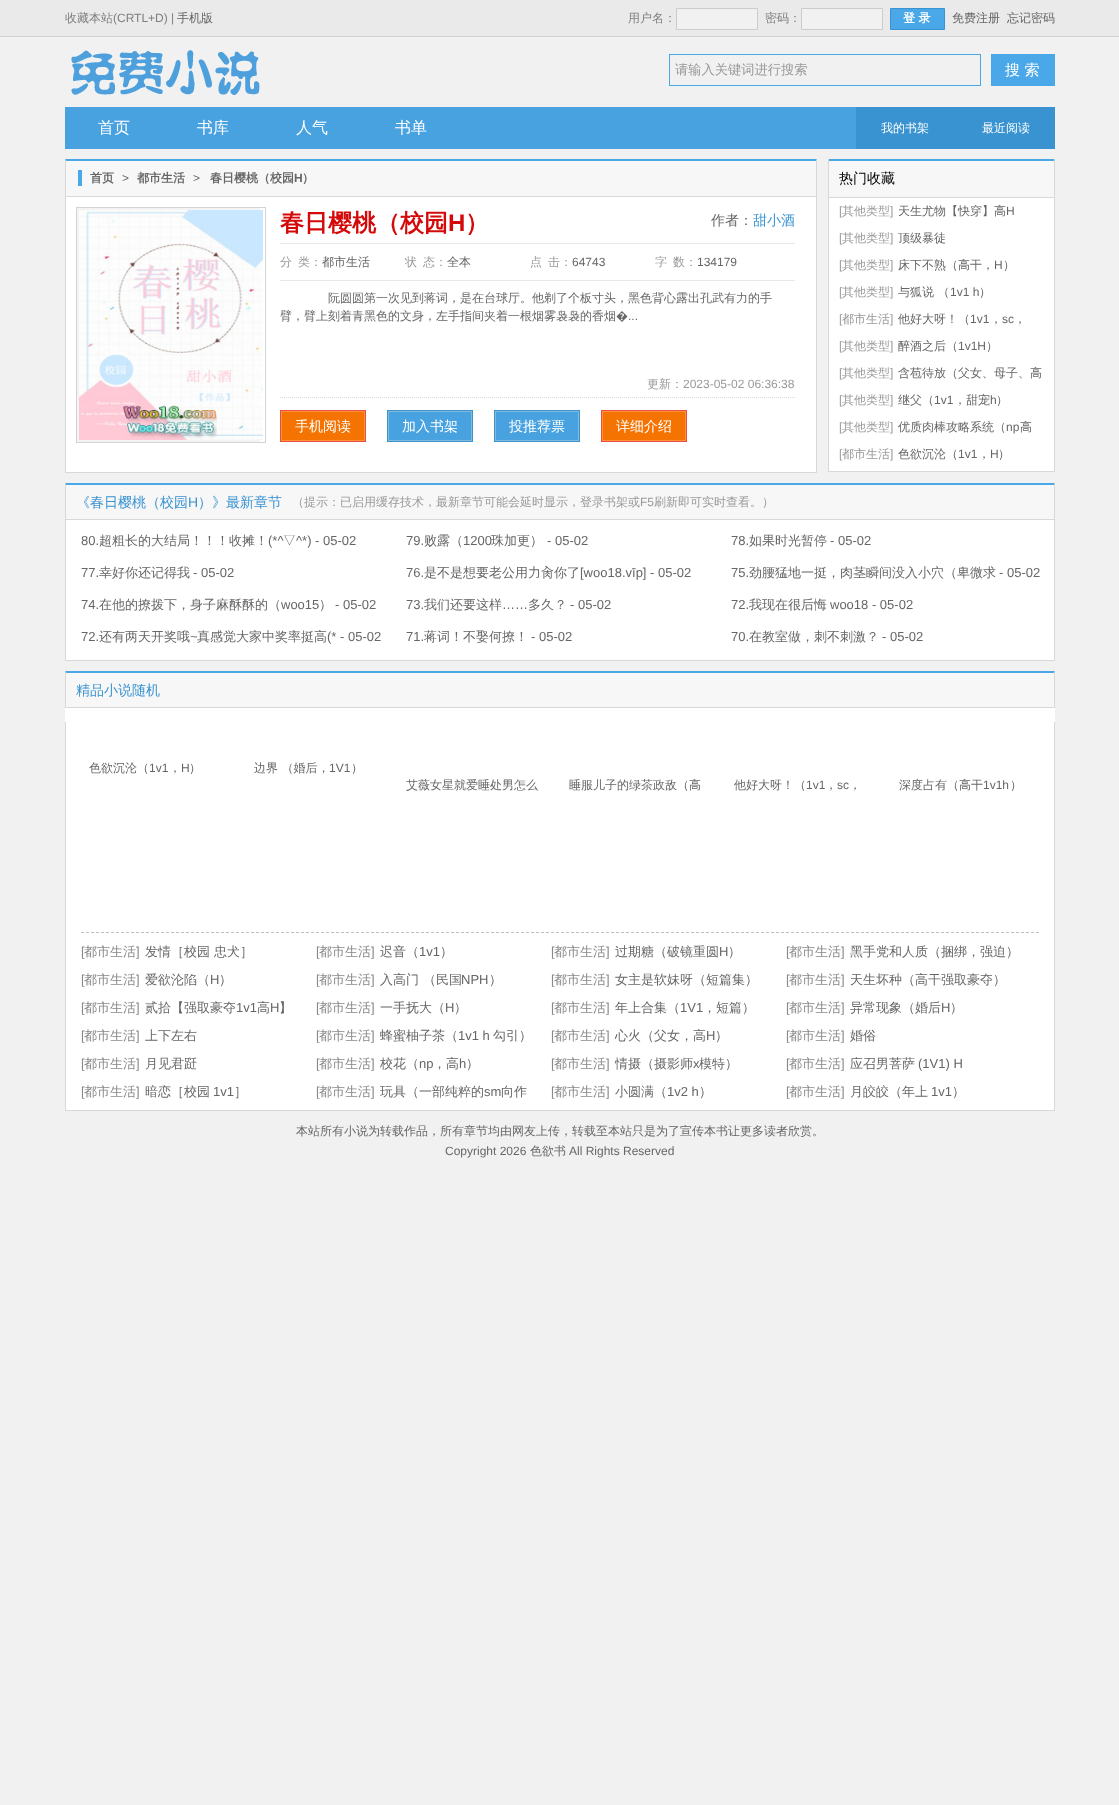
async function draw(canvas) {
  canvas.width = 1119
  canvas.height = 1805
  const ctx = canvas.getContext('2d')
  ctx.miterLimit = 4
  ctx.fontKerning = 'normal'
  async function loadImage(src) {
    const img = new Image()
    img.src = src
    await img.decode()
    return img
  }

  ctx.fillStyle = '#f1f1f1'
  ctx.fillRect(0, 0, 1119, 1805)
  ctx.fillStyle = '#eaeaea'
  ctx.fillRect(0, 0, 1119, 36)
  ctx.fillStyle = '#d1d1d1'
  ctx.fillRect(0, 36, 1119, 1)
  ctx.font = '500 12px WenQuanYi Zen Hei'
  ctx.fillStyle = '#7f7f7f'
  ctx.fillText('收藏本站', 65, 22)
  ctx.font = '12px Liberation Sans'
  ctx.fillText('(CRTL+D) |', 113, 22)
  ctx.font = '500 12px WenQuanYi Zen Hei'
  ctx.fillStyle = '#666'
  ctx.fillText('手机版', 177, 22)
  ctx.fillStyle = '#7f7f7f'
  ctx.fillText('用户名：', 628, 22)
  ctx.fillStyle = '#f1f1f1'
  ctx.beginPath()
  ctx.rect(676.5, 8.5, 81, 21)
  ctx.fill()
  ctx.strokeStyle = '#ccc'
  ctx.stroke()
  ctx.fillStyle = '#7f7f7f'
  ctx.fillText('密码：', 765, 22)
  ctx.fillStyle = '#f1f1f1'
  ctx.beginPath()
  ctx.rect(801.5, 8.5, 81, 21)
  ctx.fill()
  ctx.stroke()
  ctx.fillStyle = '#4ba8e8'
  ctx.beginPath()
  ctx.rect(890.5, 8.5, 54, 21)
  ctx.fill()
  ctx.strokeStyle = '#3993d1'
  ctx.stroke()
  ctx.font = 'bold 12px WenQuanYi Zen Hei'
  ctx.fillStyle = '#fff'
  ctx.fillText('登 录', 903, 22)
  ctx.font = '500 12px WenQuanYi Zen Hei'
  ctx.fillStyle = '#666'
  ctx.fillText('免费注册', 952, 22)
  ctx.fillText('忘记密码', 1007, 22)
  ctx.drawImage(await loadImage('image0.png'), 71, 50, 189, 45)
  ctx.strokeStyle = '#4ba8e8'
  ctx.strokeRect(669.5, 54.5, 311, 31)
  ctx.font = '500 13.25px WenQuanYi Zen Hei'
  ctx.fillStyle = '#999'
  ctx.fillText('请输入关键词进行搜索', 675, 74)
  ctx.fillStyle = '#4ba8e8'
  ctx.fillRect(991, 54, 64, 32)
  ctx.font = '500 15px WenQuanYi Zen Hei'
  ctx.fillStyle = '#fff'
  ctx.fillText('搜 索', 1005, 75)
  ctx.fillStyle = '#48a2e0'
  ctx.fillRect(65, 107, 791, 42)
  ctx.font = '500 16px WenQuanYi Zen Hei'
  ctx.fillStyle = '#fff'
  ctx.fillText('首页', 98, 133)
  ctx.fillText('书库', 197, 133)
  ctx.fillText('人气', 296, 133)
  ctx.fillText('书单', 395, 133)
  ctx.fillStyle = '#3993d1'
  ctx.fillRect(856, 107, 199, 42)
  ctx.font = '500 12px WenQuanYi Zen Hei'
  ctx.fillStyle = '#fff'
  ctx.fillText('我的书架', 881, 132)
  ctx.fillText('最近阅读', 982, 132)
  ctx.fillStyle = '#f7f7f7'
  ctx.fillRect(66, 161, 750, 35)
  ctx.fillStyle = '#4ba8e8'
  ctx.beginPath()
  ctx.moveTo(65, 159)
  ctx.lineTo(817, 159)
  ctx.lineTo(816, 161)
  ctx.lineTo(66, 161)
  ctx.closePath()
  ctx.fill()
  ctx.fillStyle = '#d8d8d8'
  ctx.beginPath()
  ctx.moveTo(817, 159)
  ctx.lineTo(817, 197)
  ctx.lineTo(816, 196)
  ctx.lineTo(816, 161)
  ctx.closePath()
  ctx.fill()
  ctx.fillRect(65, 196, 752, 1)
  ctx.beginPath()
  ctx.moveTo(65, 197)
  ctx.lineTo(65, 159)
  ctx.lineTo(66, 161)
  ctx.lineTo(66, 196)
  ctx.closePath()
  ctx.fill()
  ctx.fillStyle = '#4ba8e8'
  ctx.fillRect(78, 170, 4, 16)
  ctx.font = 'bold 12px WenQuanYi Zen Hei'
  ctx.fillStyle = '#666'
  ctx.fillText('首页', 90, 182)
  ctx.font = '12px Liberation Sans'
  ctx.fillText('>', 122, 182)
  ctx.font = 'bold 12px WenQuanYi Zen Hei'
  ctx.fillText('都市生活', 137, 182)
  ctx.font = '12px Liberation Sans'
  ctx.fillText('>', 193, 182)
  ctx.font = 'bold 12px WenQuanYi Zen Hei'
  ctx.fillText('春日樱桃（校园', 210, 182)
  ctx.font = 'bold 12px Liberation Sans'
  ctx.fillText('H', 294, 182)
  ctx.font = 'bold 12px WenQuanYi Zen Hei'
  ctx.fillText('）', 302, 182)
  ctx.fillStyle = '#fff'
  ctx.fillRect(66, 197, 750, 275)
  ctx.fillStyle = '#d8d8d8'
  ctx.fillRect(816, 197, 1, 276)
  ctx.fillRect(65, 472, 752, 1)
  ctx.fillRect(65, 197, 1, 276)
  ctx.fillStyle = '#f3f3f3'
  ctx.fillRect(77, 208, 183, 234)
  ctx.strokeStyle = '#d0d4d5'
  ctx.strokeRect(76.5, 207.5, 189, 235)
  ctx.drawImage(await loadImage('image1.png'), 79, 210, 184, 230)
  ctx.fillStyle = '#e8e8e8'
  ctx.fillRect(280, 243, 515, 1)
  ctx.font = 'bold 24px WenQuanYi Zen Hei'
  ctx.fillStyle = '#d40909'
  ctx.fillText('春日樱桃（校园', 280, 231)
  ctx.font = 'bold 24px Liberation Sans'
  ctx.fillText('H', 448, 231)
  ctx.font = 'bold 24px WenQuanYi Zen Hei'
  ctx.fillText('）', 465, 231)
  ctx.font = '500 14px WenQuanYi Zen Hei'
  ctx.fillStyle = '#666'
  ctx.fillText('作者：', 711, 225)
  ctx.fillStyle = '#3993d1'
  ctx.fillText('甜小酒', 753, 225)
  ctx.fillStyle = '#e8e8e8'
  ctx.fillRect(280, 280, 515, 1)
  ctx.font = '500 12px WenQuanYi Zen Hei'
  ctx.fillStyle = '#999'
  ctx.fillText('分', 280, 266)
  ctx.fillText('类：', 298, 266)
  ctx.fillStyle = '#666'
  ctx.fillText('都市生活', 322, 266)
  ctx.fillStyle = '#999'
  ctx.fillText('状', 405, 266)
  ctx.fillText('态：', 423, 266)
  ctx.fillStyle = '#666'
  ctx.fillText('全本', 447, 266)
  ctx.fillStyle = '#999'
  ctx.fillText('点', 530, 266)
  ctx.fillText('击：', 548, 266)
  ctx.font = '12px Liberation Sans'
  ctx.fillStyle = '#666'
  ctx.fillText('64743', 572, 266)
  ctx.font = '500 12px WenQuanYi Zen Hei'
  ctx.fillStyle = '#999'
  ctx.fillText('字', 655, 266)
  ctx.fillText('数：', 673, 266)
  ctx.font = '12px Liberation Sans'
  ctx.fillStyle = '#666'
  ctx.fillText('134179', 697, 266)
  ctx.font = '500 12px WenQuanYi Zen Hei'
  ctx.fillText('阮圆圆第一次见到蒋词，是在台球厅。他剃了个板寸头，黑色背心露出孔武有力的手', 328, 302)
  ctx.fillText('臂，臂上刻着青黑色的文身，左手指间夹着一根烟雾袅袅的香烟', 280, 320)
  ctx.font = '12px Noto Sans'
  ctx.fillText('�', 616, 320)
  ctx.font = '12px Liberation Sans'
  ctx.fillText('...', 628, 320)
  ctx.beginPath()
  ctx.moveTo(280, 397.5)
  ctx.lineTo(795, 397.5)
  ctx.strokeStyle = '#d9d9d9'
  ctx.setLineDash([1, 1])
  ctx.stroke()
  ctx.font = '500 12px WenQuanYi Zen Hei'
  ctx.fillStyle = '#999'
  ctx.fillText('更新：', 647, 388)
  ctx.font = '12px Liberation Sans'
  ctx.fillText('2023-05-02 06:36:38', 683, 388)
  ctx.fillStyle = '#f57300'
  ctx.fillRect(282, 412, 82, 28)
  ctx.strokeStyle = '#ee4a46'
  ctx.setLineDash([])
  ctx.strokeRect(280.5, 410.5, 85, 31)
  ctx.strokeStyle = '#fc9336'
  ctx.strokeRect(281.5, 411.5, 83, 29)
  ctx.font = '500 14px WenQuanYi Zen Hei'
  ctx.fillStyle = '#fff'
  ctx.fillText('手机阅读', 295, 431)
  ctx.fillStyle = '#48a2e0'
  ctx.fillRect(389, 412, 82, 28)
  ctx.strokeStyle = '#3993d1'
  ctx.strokeRect(387.5, 410.5, 85, 31)
  ctx.strokeStyle = '#82bcd8'
  ctx.strokeRect(388.5, 411.5, 83, 29)
  ctx.fillStyle = '#fff'
  ctx.fillText('加入书架', 402, 431)
  ctx.fillStyle = '#48a2e0'
  ctx.fillRect(496, 412, 82, 28)
  ctx.strokeStyle = '#3993d1'
  ctx.strokeRect(494.5, 410.5, 85, 31)
  ctx.strokeStyle = '#82bcd8'
  ctx.strokeRect(495.5, 411.5, 83, 29)
  ctx.fillStyle = '#fff'
  ctx.fillText('投推荐票', 509, 431)
  ctx.fillStyle = '#f57300'
  ctx.fillRect(603, 412, 82, 28)
  ctx.strokeStyle = '#ee4a46'
  ctx.strokeRect(601.5, 410.5, 85, 31)
  ctx.strokeStyle = '#fc9336'
  ctx.strokeRect(602.5, 411.5, 83, 29)
  ctx.fillStyle = '#fff'
  ctx.fillText('详细介绍', 616, 431)
  ctx.fillRect(829, 198, 225, 273)
  ctx.fillStyle = '#d8d8d8'
  ctx.fillRect(1054, 159, 1, 313)
  ctx.fillRect(828, 471, 227, 1)
  ctx.fillRect(828, 159, 1, 313)
  ctx.fillStyle = '#f7f7f7'
  ctx.fillRect(829, 161, 225, 36)
  ctx.fillStyle = '#4ba8e8'
  ctx.fillRect(829, 159, 225, 2)
  ctx.fillStyle = '#d8d8d8'
  ctx.fillRect(829, 197, 225, 1)
  ctx.fillStyle = '#000'
  ctx.fillText('热门收藏', 839, 183)
  ctx.font = '12px Liberation Sans'
  ctx.fillStyle = '#999'
  ctx.fillText('[', 839, 215)
  ctx.font = '500 12px WenQuanYi Zen Hei'
  ctx.fillText('其他类型', 842, 215)
  ctx.font = '12px Liberation Sans'
  ctx.fillText(']', 890, 215)
  ctx.font = '500 12px WenQuanYi Zen Hei'
  ctx.fillStyle = '#666'
  ctx.fillText('天生尤物【快穿】高', 898, 215)
  ctx.font = '12px Liberation Sans'
  ctx.fillText('H', 1006, 215)
  ctx.fillStyle = '#999'
  ctx.fillText('[', 839, 242)
  ctx.font = '500 12px WenQuanYi Zen Hei'
  ctx.fillText('其他类型', 842, 242)
  ctx.font = '12px Liberation Sans'
  ctx.fillText(']', 890, 242)
  ctx.font = '500 12px WenQuanYi Zen Hei'
  ctx.fillStyle = '#666'
  ctx.fillText('顶级暴徒', 898, 242)
  ctx.font = '12px Liberation Sans'
  ctx.fillStyle = '#999'
  ctx.fillText('[', 839, 269)
  ctx.font = '500 12px WenQuanYi Zen Hei'
  ctx.fillText('其他类型', 842, 269)
  ctx.font = '12px Liberation Sans'
  ctx.fillText(']', 890, 269)
  ctx.font = '500 12px WenQuanYi Zen Hei'
  ctx.fillStyle = '#666'
  ctx.fillText('床下不熟（高干，', 898, 269)
  ctx.font = '12px Liberation Sans'
  ctx.fillText('H', 994, 269)
  ctx.font = '500 12px WenQuanYi Zen Hei'
  ctx.fillText('）', 1003, 269)
  ctx.font = '12px Liberation Sans'
  ctx.fillStyle = '#999'
  ctx.fillText('[', 839, 296)
  ctx.font = '500 12px WenQuanYi Zen Hei'
  ctx.fillText('其他类型', 842, 296)
  ctx.font = '12px Liberation Sans'
  ctx.fillText(']', 890, 296)
  ctx.font = '500 12px WenQuanYi Zen Hei'
  ctx.fillStyle = '#666'
  ctx.fillText('与狐说 （', 898, 296)
  ctx.font = '12px Liberation Sans'
  ctx.fillText('1v1 h', 950, 296)
  ctx.font = '500 12px WenQuanYi Zen Hei'
  ctx.fillText('）', 979, 296)
  ctx.font = '12px Liberation Sans'
  ctx.fillStyle = '#999'
  ctx.fillText('[', 839, 323)
  ctx.font = '500 12px WenQuanYi Zen Hei'
  ctx.fillText('都市生活', 842, 323)
  ctx.font = '12px Liberation Sans'
  ctx.fillText(']', 890, 323)
  ctx.font = '500 12px WenQuanYi Zen Hei'
  ctx.fillStyle = '#666'
  ctx.fillText('他好大呀！（', 898, 323)
  ctx.font = '12px Liberation Sans'
  ctx.fillText('1v1', 970, 323)
  ctx.font = '500 12px WenQuanYi Zen Hei'
  ctx.fillText('，', 990, 323)
  ctx.font = '12px Liberation Sans'
  ctx.fillText('sc', 1002, 323)
  ctx.font = '500 12px WenQuanYi Zen Hei'
  ctx.fillText('，', 1014, 323)
  ctx.font = '12px Liberation Sans'
  ctx.fillStyle = '#999'
  ctx.fillText('[', 839, 350)
  ctx.font = '500 12px WenQuanYi Zen Hei'
  ctx.fillText('其他类型', 842, 350)
  ctx.font = '12px Liberation Sans'
  ctx.fillText(']', 890, 350)
  ctx.font = '500 12px WenQuanYi Zen Hei'
  ctx.fillStyle = '#666'
  ctx.fillText('醉酒之后（', 898, 350)
  ctx.font = '12px Liberation Sans'
  ctx.fillText('1v1H', 958, 350)
  ctx.font = '500 12px WenQuanYi Zen Hei'
  ctx.fillText('）', 986, 350)
  ctx.font = '12px Liberation Sans'
  ctx.fillStyle = '#999'
  ctx.fillText('[', 839, 377)
  ctx.font = '500 12px WenQuanYi Zen Hei'
  ctx.fillText('其他类型', 842, 377)
  ctx.font = '12px Liberation Sans'
  ctx.fillText(']', 890, 377)
  ctx.font = '500 12px WenQuanYi Zen Hei'
  ctx.fillStyle = '#666'
  ctx.fillText('含苞待放（父女、母子、高', 898, 377)
  ctx.font = '12px Liberation Sans'
  ctx.fillStyle = '#999'
  ctx.fillText('[', 839, 404)
  ctx.font = '500 12px WenQuanYi Zen Hei'
  ctx.fillText('其他类型', 842, 404)
  ctx.font = '12px Liberation Sans'
  ctx.fillText(']', 890, 404)
  ctx.font = '500 12px WenQuanYi Zen Hei'
  ctx.fillStyle = '#666'
  ctx.fillText('继父（', 898, 404)
  ctx.font = '12px Liberation Sans'
  ctx.fillText('1v1', 934, 404)
  ctx.font = '500 12px WenQuanYi Zen Hei'
  ctx.fillText('，甜宠', 954, 404)
  ctx.font = '12px Liberation Sans'
  ctx.fillText('h', 990, 404)
  ctx.font = '500 12px WenQuanYi Zen Hei'
  ctx.fillText('）', 996, 404)
  ctx.font = '12px Liberation Sans'
  ctx.fillStyle = '#999'
  ctx.fillText('[', 839, 431)
  ctx.font = '500 12px WenQuanYi Zen Hei'
  ctx.fillText('其他类型', 842, 431)
  ctx.font = '12px Liberation Sans'
  ctx.fillText(']', 890, 431)
  ctx.font = '500 12px WenQuanYi Zen Hei'
  ctx.fillStyle = '#666'
  ctx.fillText('优质肉棒攻略系统（', 898, 431)
  ctx.font = '12px Liberation Sans'
  ctx.fillText('np', 1006, 431)
  ctx.font = '500 12px WenQuanYi Zen Hei'
  ctx.fillText('高', 1020, 431)
  ctx.font = '12px Liberation Sans'
  ctx.fillStyle = '#999'
  ctx.fillText('[', 839, 458)
  ctx.font = '500 12px WenQuanYi Zen Hei'
  ctx.fillText('都市生活', 842, 458)
  ctx.font = '12px Liberation Sans'
  ctx.fillText(']', 890, 458)
  ctx.font = '500 12px WenQuanYi Zen Hei'
  ctx.fillStyle = '#666'
  ctx.fillText('色欲沉沦（', 898, 458)
  ctx.font = '12px Liberation Sans'
  ctx.fillText('1v1', 958, 458)
  ctx.font = '500 12px WenQuanYi Zen Hei'
  ctx.fillText('，', 978, 458)
  ctx.font = '12px Liberation Sans'
  ctx.fillText('H', 990, 458)
  ctx.font = '500 12px WenQuanYi Zen Hei'
  ctx.fillText('）', 998, 458)
  ctx.fillStyle = '#f7f7f7'
  ctx.fillRect(66, 485, 988, 34)
  ctx.fillStyle = '#4ba8e8'
  ctx.beginPath()
  ctx.moveTo(65, 483)
  ctx.lineTo(1055, 483)
  ctx.lineTo(1054, 485)
  ctx.lineTo(66, 485)
  ctx.closePath()
  ctx.fill()
  ctx.fillStyle = '#d8d8d8'
  ctx.beginPath()
  ctx.moveTo(1055, 483)
  ctx.lineTo(1055, 520)
  ctx.lineTo(1054, 519)
  ctx.lineTo(1054, 485)
  ctx.closePath()
  ctx.fill()
  ctx.fillRect(65, 519, 990, 1)
  ctx.beginPath()
  ctx.moveTo(65, 520)
  ctx.lineTo(65, 483)
  ctx.lineTo(66, 485)
  ctx.lineTo(66, 519)
  ctx.closePath()
  ctx.fill()
  ctx.font = '500 14px WenQuanYi Zen Hei'
  ctx.fillStyle = '#3993d1'
  ctx.fillText('《春日樱桃（校园', 76, 507)
  ctx.font = '14px Liberation Sans'
  ctx.fillText('H', 188, 507)
  ctx.font = '500 14px WenQuanYi Zen Hei'
  ctx.fillText('）》最新章节', 198, 507)
  ctx.font = '500 12px WenQuanYi Zen Hei'
  ctx.fillStyle = '#999'
  ctx.fillText('（提示：已启用缓存技术，最新章节可能会延时显示，登录书架或', 292, 506)
  ctx.font = '12px Liberation Sans'
  ctx.fillText('F5', 640, 506)
  ctx.font = '500 12px WenQuanYi Zen Hei'
  ctx.fillText('刷新即可实时查看。）', 654, 506)
  ctx.fillStyle = '#fff'
  ctx.fillRect(66, 520, 988, 140)
  ctx.fillStyle = '#d8d8d8'
  ctx.fillRect(1054, 520, 1, 141)
  ctx.fillRect(65, 660, 990, 1)
  ctx.fillRect(65, 520, 1, 141)
  ctx.font = '13px Liberation Sans'
  ctx.fillStyle = '#666'
  ctx.fillText('80.', 81, 545)
  ctx.font = '500 13px WenQuanYi Zen Hei'
  ctx.fillText('超粗长的大结局！！！收摊！', 99, 545)
  ctx.font = '13px Liberation Sans'
  ctx.fillText('(*^', 268, 545)
  ctx.font = '500 13px WenQuanYi Zen Hei'
  ctx.fillText('▽', 283, 545)
  ctx.font = '13px Liberation Sans'
  ctx.fillText('^*) - 05-02', 296, 545)
  ctx.fillText('79.', 406, 545)
  ctx.font = '500 13px WenQuanYi Zen Hei'
  ctx.fillText('败露（', 424, 545)
  ctx.font = '13px Liberation Sans'
  ctx.fillText('1200', 463, 545)
  ctx.font = '500 13px WenQuanYi Zen Hei'
  ctx.fillText('珠加更）', 491, 545)
  ctx.font = '13px Liberation Sans'
  ctx.fillText('- 05-02', 547, 545)
  ctx.fillText('78.', 731, 545)
  ctx.font = '500 13px WenQuanYi Zen Hei'
  ctx.fillText('如果时光暂停', 749, 545)
  ctx.font = '13px Liberation Sans'
  ctx.fillText('- 05-02', 830, 545)
  ctx.fillText('77.', 81, 577)
  ctx.font = '500 13px WenQuanYi Zen Hei'
  ctx.fillText('幸好你还记得我', 99, 577)
  ctx.font = '13px Liberation Sans'
  ctx.fillText('- 05-02', 193, 577)
  ctx.fillText('76.', 406, 577)
  ctx.font = '500 13px WenQuanYi Zen Hei'
  ctx.fillText('是不是想要老公用力肏你了', 424, 577)
  ctx.font = '13px Liberation Sans'
  ctx.fillText('[woo18.vīp] - 05-02', 580, 577)
  ctx.fillText('75.', 731, 577)
  ctx.font = '500 13px WenQuanYi Zen Hei'
  ctx.fillText('劲腰猛地一挺，肉茎瞬间没入小穴（卑微求', 749, 577)
  ctx.font = '13px Liberation Sans'
  ctx.fillText('- 05-02', 999, 577)
  ctx.fillText('74.', 81, 609)
  ctx.font = '500 13px WenQuanYi Zen Hei'
  ctx.fillText('在他的撩拨下，身子麻酥酥的（', 99, 609)
  ctx.font = '13px Liberation Sans'
  ctx.fillText('woo15', 281, 609)
  ctx.font = '500 13px WenQuanYi Zen Hei'
  ctx.fillText('）', 319, 609)
  ctx.font = '13px Liberation Sans'
  ctx.fillText('- 05-02', 335, 609)
  ctx.fillText('73.', 406, 609)
  ctx.font = '500 13px WenQuanYi Zen Hei'
  ctx.fillText('我们还要这样', 424, 609)
  ctx.font = '13px Liberation Sans'
  ctx.fillText('……', 502, 609)
  ctx.font = '500 13px WenQuanYi Zen Hei'
  ctx.fillText('多久？', 528, 609)
  ctx.font = '13px Liberation Sans'
  ctx.fillText('- 05-02', 570, 609)
  ctx.fillText('72.', 731, 609)
  ctx.font = '500 13px WenQuanYi Zen Hei'
  ctx.fillText('我现在很后悔', 749, 609)
  ctx.font = '13px Liberation Sans'
  ctx.fillText('woo18 - 05-02', 830, 609)
  ctx.fillText('72.', 81, 641)
  ctx.font = '500 13px WenQuanYi Zen Hei'
  ctx.fillText('还有两天开奖哦', 99, 641)
  ctx.font = '13px Liberation Sans'
  ctx.fillText('~', 190, 641)
  ctx.font = '500 13px WenQuanYi Zen Hei'
  ctx.fillText('真感觉大家中奖率挺高', 197, 641)
  ctx.font = '13px Liberation Sans'
  ctx.fillText('(* - 05-02', 327, 641)
  ctx.fillText('71.', 406, 641)
  ctx.font = '500 13px WenQuanYi Zen Hei'
  ctx.fillText('蒋词！不娶何撩！', 424, 641)
  ctx.font = '13px Liberation Sans'
  ctx.fillText('- 05-02', 531, 641)
  ctx.fillText('70.', 731, 641)
  ctx.font = '500 13px WenQuanYi Zen Hei'
  ctx.fillText('在教室做，刺不刺激？', 749, 641)
  ctx.font = '13px Liberation Sans'
  ctx.fillText('- 05-02', 882, 641)
  ctx.fillStyle = '#fff'
  ctx.fillRect(65, 671, 990, 439)
  ctx.fillStyle = '#f7f7f7'
  ctx.fillRect(66, 673, 988, 34)
  ctx.fillStyle = '#4ba8e8'
  ctx.beginPath()
  ctx.moveTo(65, 671)
  ctx.lineTo(1055, 671)
  ctx.lineTo(1054, 673)
  ctx.lineTo(66, 673)
  ctx.closePath()
  ctx.fill()
  ctx.fillStyle = '#d8d8d8'
  ctx.beginPath()
  ctx.moveTo(1055, 671)
  ctx.lineTo(1055, 708)
  ctx.lineTo(1054, 707)
  ctx.lineTo(1054, 673)
  ctx.closePath()
  ctx.fill()
  ctx.fillRect(65, 707, 990, 1)
  ctx.beginPath()
  ctx.moveTo(65, 708)
  ctx.lineTo(65, 671)
  ctx.lineTo(66, 673)
  ctx.lineTo(66, 707)
  ctx.closePath()
  ctx.fill()
  ctx.font = '500 14px WenQuanYi Zen Hei'
  ctx.fillStyle = '#3993d1'
  ctx.fillText('精品小说随机', 76, 695)
  ctx.fillStyle = '#d8d8d8'
  ctx.fillRect(1054, 722, 1, 389)
  ctx.fillRect(65, 722, 1, 210)
  ctx.font = '500 12px WenQuanYi Zen Hei'
  ctx.fillStyle = '#666'
  ctx.fillText('色欲沉沦（', 89, 772)
  ctx.font = '12px Liberation Sans'
  ctx.fillText('1v1', 149, 772)
  ctx.font = '500 12px WenQuanYi Zen Hei'
  ctx.fillText('，', 169, 772)
  ctx.font = '12px Liberation Sans'
  ctx.fillText('H', 181, 772)
  ctx.font = '500 12px WenQuanYi Zen Hei'
  ctx.fillText('）', 189, 772)
  ctx.fillText('边界 （婚后，', 254, 772)
  ctx.font = '12px Liberation Sans'
  ctx.fillText('1V1', 329, 772)
  ctx.font = '500 12px WenQuanYi Zen Hei'
  ctx.fillText('）', 351, 772)
  ctx.fillText('艾薇女星就爱睡处男怎么', 406, 789)
  ctx.fillText('睡服儿子的绿茶政敌（高', 569, 789)
  ctx.fillText('他好大呀！（', 734, 789)
  ctx.font = '12px Liberation Sans'
  ctx.fillText('1v1', 806, 789)
  ctx.font = '500 12px WenQuanYi Zen Hei'
  ctx.fillText('，', 825, 789)
  ctx.font = '12px Liberation Sans'
  ctx.fillText('sc', 837, 789)
  ctx.font = '500 12px WenQuanYi Zen Hei'
  ctx.fillText('，', 849, 789)
  ctx.fillText('深度占有（高干', 899, 789)
  ctx.font = '12px Liberation Sans'
  ctx.fillText('1v1h', 983, 789)
  ctx.font = '500 12px WenQuanYi Zen Hei'
  ctx.fillText('）', 1010, 789)
  ctx.fillStyle = '#d8d8d8'
  ctx.fillRect(65, 1110, 990, 1)
  ctx.fillRect(65, 932, 1, 179)
  ctx.beginPath()
  ctx.moveTo(81, 932.5)
  ctx.lineTo(1039, 932.5)
  ctx.strokeStyle = '#c0c0c0'
  ctx.setLineDash([3, 2])
  ctx.stroke()
  ctx.font = '13px Liberation Sans'
  ctx.fillStyle = '#888'
  ctx.fillText('[', 81, 956)
  ctx.font = '500 13px WenQuanYi Zen Hei'
  ctx.fillText('都市生活', 84, 956)
  ctx.font = '13px Liberation Sans'
  ctx.fillText(']', 136, 956)
  ctx.font = '500 13px WenQuanYi Zen Hei'
  ctx.fillStyle = '#666'
  ctx.fillText('发情［校园 忠犬］', 145, 956)
  ctx.font = '13px Liberation Sans'
  ctx.fillStyle = '#888'
  ctx.fillText('[', 316, 956)
  ctx.font = '500 13px WenQuanYi Zen Hei'
  ctx.fillText('都市生活', 319, 956)
  ctx.font = '13px Liberation Sans'
  ctx.fillText(']', 371, 956)
  ctx.font = '500 13px WenQuanYi Zen Hei'
  ctx.fillStyle = '#666'
  ctx.fillText('迟音（', 380, 956)
  ctx.font = '13px Liberation Sans'
  ctx.fillText('1v1', 419, 956)
  ctx.font = '500 13px WenQuanYi Zen Hei'
  ctx.fillText('）', 440, 956)
  ctx.font = '13px Liberation Sans'
  ctx.fillStyle = '#888'
  ctx.fillText('[', 551, 956)
  ctx.font = '500 13px WenQuanYi Zen Hei'
  ctx.fillText('都市生活', 554, 956)
  ctx.font = '13px Liberation Sans'
  ctx.fillText(']', 606, 956)
  ctx.font = '500 13px WenQuanYi Zen Hei'
  ctx.fillStyle = '#666'
  ctx.fillText('过期糖（破镜重圆', 615, 956)
  ctx.font = '13px Liberation Sans'
  ctx.fillText('H', 719, 956)
  ctx.font = '500 13px WenQuanYi Zen Hei'
  ctx.fillText('）', 728, 956)
  ctx.font = '13px Liberation Sans'
  ctx.fillStyle = '#888'
  ctx.fillText('[', 786, 956)
  ctx.font = '500 13px WenQuanYi Zen Hei'
  ctx.fillText('都市生活', 789, 956)
  ctx.font = '13px Liberation Sans'
  ctx.fillText(']', 841, 956)
  ctx.font = '500 13px WenQuanYi Zen Hei'
  ctx.fillStyle = '#666'
  ctx.fillText('黑手党和人质（捆绑，强迫）', 850, 956)
  ctx.font = '13px Liberation Sans'
  ctx.fillStyle = '#888'
  ctx.fillText('[', 81, 984)
  ctx.font = '500 13px WenQuanYi Zen Hei'
  ctx.fillText('都市生活', 84, 984)
  ctx.font = '13px Liberation Sans'
  ctx.fillText(']', 136, 984)
  ctx.font = '500 13px WenQuanYi Zen Hei'
  ctx.fillStyle = '#666'
  ctx.fillText('爱欲沦陷（', 145, 984)
  ctx.font = '13px Liberation Sans'
  ctx.fillText('H', 210, 984)
  ctx.font = '500 13px WenQuanYi Zen Hei'
  ctx.fillText('）', 219, 984)
  ctx.font = '13px Liberation Sans'
  ctx.fillStyle = '#888'
  ctx.fillText('[', 316, 984)
  ctx.font = '500 13px WenQuanYi Zen Hei'
  ctx.fillText('都市生活', 319, 984)
  ctx.font = '13px Liberation Sans'
  ctx.fillText(']', 371, 984)
  ctx.font = '500 13px WenQuanYi Zen Hei'
  ctx.fillStyle = '#666'
  ctx.fillText('入高门 （民国', 380, 984)
  ctx.font = '13px Liberation Sans'
  ctx.fillText('NPH', 461, 984)
  ctx.font = '500 13px WenQuanYi Zen Hei'
  ctx.fillText('）', 489, 984)
  ctx.font = '13px Liberation Sans'
  ctx.fillStyle = '#888'
  ctx.fillText('[', 551, 984)
  ctx.font = '500 13px WenQuanYi Zen Hei'
  ctx.fillText('都市生活', 554, 984)
  ctx.font = '13px Liberation Sans'
  ctx.fillText(']', 606, 984)
  ctx.font = '500 13px WenQuanYi Zen Hei'
  ctx.fillStyle = '#666'
  ctx.fillText('女主是软妹呀（短篇集）', 615, 984)
  ctx.font = '13px Liberation Sans'
  ctx.fillStyle = '#888'
  ctx.fillText('[', 786, 984)
  ctx.font = '500 13px WenQuanYi Zen Hei'
  ctx.fillText('都市生活', 789, 984)
  ctx.font = '13px Liberation Sans'
  ctx.fillText(']', 841, 984)
  ctx.font = '500 13px WenQuanYi Zen Hei'
  ctx.fillStyle = '#666'
  ctx.fillText('天生坏种（高干强取豪夺）', 850, 984)
  ctx.font = '13px Liberation Sans'
  ctx.fillStyle = '#888'
  ctx.fillText('[', 81, 1012)
  ctx.font = '500 13px WenQuanYi Zen Hei'
  ctx.fillText('都市生活', 84, 1012)
  ctx.font = '13px Liberation Sans'
  ctx.fillText(']', 136, 1012)
  ctx.font = '500 13px WenQuanYi Zen Hei'
  ctx.fillStyle = '#666'
  ctx.fillText('贰拾【强取豪夺', 145, 1012)
  ctx.font = '13px Liberation Sans'
  ctx.fillText('1v1', 236, 1012)
  ctx.font = '500 13px WenQuanYi Zen Hei'
  ctx.fillText('高', 257, 1012)
  ctx.font = '13px Liberation Sans'
  ctx.fillText('H', 270, 1012)
  ctx.font = '500 13px WenQuanYi Zen Hei'
  ctx.fillText('】', 279, 1012)
  ctx.font = '13px Liberation Sans'
  ctx.fillStyle = '#888'
  ctx.fillText('[', 316, 1012)
  ctx.font = '500 13px WenQuanYi Zen Hei'
  ctx.fillText('都市生活', 319, 1012)
  ctx.font = '13px Liberation Sans'
  ctx.fillText(']', 371, 1012)
  ctx.font = '500 13px WenQuanYi Zen Hei'
  ctx.fillStyle = '#666'
  ctx.fillText('一手抚大（', 380, 1012)
  ctx.font = '13px Liberation Sans'
  ctx.fillText('H', 445, 1012)
  ctx.font = '500 13px WenQuanYi Zen Hei'
  ctx.fillText('）', 454, 1012)
  ctx.font = '13px Liberation Sans'
  ctx.fillStyle = '#888'
  ctx.fillText('[', 551, 1012)
  ctx.font = '500 13px WenQuanYi Zen Hei'
  ctx.fillText('都市生活', 554, 1012)
  ctx.font = '13px Liberation Sans'
  ctx.fillText(']', 606, 1012)
  ctx.font = '500 13px WenQuanYi Zen Hei'
  ctx.fillStyle = '#666'
  ctx.fillText('年上合集（', 615, 1012)
  ctx.font = '13px Liberation Sans'
  ctx.fillText('1V1', 680, 1012)
  ctx.font = '500 13px WenQuanYi Zen Hei'
  ctx.fillText('，短篇）', 703, 1012)
  ctx.font = '13px Liberation Sans'
  ctx.fillStyle = '#888'
  ctx.fillText('[', 786, 1012)
  ctx.font = '500 13px WenQuanYi Zen Hei'
  ctx.fillText('都市生活', 789, 1012)
  ctx.font = '13px Liberation Sans'
  ctx.fillText(']', 841, 1012)
  ctx.font = '500 13px WenQuanYi Zen Hei'
  ctx.fillStyle = '#666'
  ctx.fillText('异常现象（婚后', 850, 1012)
  ctx.font = '13px Liberation Sans'
  ctx.fillText('H', 941, 1012)
  ctx.font = '500 13px WenQuanYi Zen Hei'
  ctx.fillText('）', 950, 1012)
  ctx.font = '13px Liberation Sans'
  ctx.fillStyle = '#888'
  ctx.fillText('[', 81, 1040)
  ctx.font = '500 13px WenQuanYi Zen Hei'
  ctx.fillText('都市生活', 84, 1040)
  ctx.font = '13px Liberation Sans'
  ctx.fillText(']', 136, 1040)
  ctx.font = '500 13px WenQuanYi Zen Hei'
  ctx.fillStyle = '#666'
  ctx.fillText('上下左右', 145, 1040)
  ctx.font = '13px Liberation Sans'
  ctx.fillStyle = '#888'
  ctx.fillText('[', 316, 1040)
  ctx.font = '500 13px WenQuanYi Zen Hei'
  ctx.fillText('都市生活', 319, 1040)
  ctx.font = '13px Liberation Sans'
  ctx.fillText(']', 371, 1040)
  ctx.font = '500 13px WenQuanYi Zen Hei'
  ctx.fillStyle = '#666'
  ctx.fillText('蜂蜜柚子茶（', 380, 1040)
  ctx.font = '13px Liberation Sans'
  ctx.fillText('1v1 h', 458, 1040)
  ctx.font = '500 13px WenQuanYi Zen Hei'
  ctx.fillText('勾引）', 493, 1040)
  ctx.font = '13px Liberation Sans'
  ctx.fillStyle = '#888'
  ctx.fillText('[', 551, 1040)
  ctx.font = '500 13px WenQuanYi Zen Hei'
  ctx.fillText('都市生活', 554, 1040)
  ctx.font = '13px Liberation Sans'
  ctx.fillText(']', 606, 1040)
  ctx.font = '500 13px WenQuanYi Zen Hei'
  ctx.fillStyle = '#666'
  ctx.fillText('心火（父女，高', 615, 1040)
  ctx.font = '13px Liberation Sans'
  ctx.fillText('H', 706, 1040)
  ctx.font = '500 13px WenQuanYi Zen Hei'
  ctx.fillText('）', 715, 1040)
  ctx.font = '13px Liberation Sans'
  ctx.fillStyle = '#888'
  ctx.fillText('[', 786, 1040)
  ctx.font = '500 13px WenQuanYi Zen Hei'
  ctx.fillText('都市生活', 789, 1040)
  ctx.font = '13px Liberation Sans'
  ctx.fillText(']', 841, 1040)
  ctx.font = '500 13px WenQuanYi Zen Hei'
  ctx.fillStyle = '#666'
  ctx.fillText('婚俗', 850, 1040)
  ctx.font = '13px Liberation Sans'
  ctx.fillStyle = '#888'
  ctx.fillText('[', 81, 1068)
  ctx.font = '500 13px WenQuanYi Zen Hei'
  ctx.fillText('都市生活', 84, 1068)
  ctx.font = '13px Liberation Sans'
  ctx.fillText(']', 136, 1068)
  ctx.font = '500 13px WenQuanYi Zen Hei'
  ctx.fillStyle = '#666'
  ctx.fillText('月见君跹', 145, 1068)
  ctx.font = '13px Liberation Sans'
  ctx.fillStyle = '#888'
  ctx.fillText('[', 316, 1068)
  ctx.font = '500 13px WenQuanYi Zen Hei'
  ctx.fillText('都市生活', 319, 1068)
  ctx.font = '13px Liberation Sans'
  ctx.fillText(']', 371, 1068)
  ctx.font = '500 13px WenQuanYi Zen Hei'
  ctx.fillStyle = '#666'
  ctx.fillText('校花（', 380, 1068)
  ctx.font = '13px Liberation Sans'
  ctx.fillText('np', 419, 1068)
  ctx.font = '500 13px WenQuanYi Zen Hei'
  ctx.fillText('，高', 433, 1068)
  ctx.font = '13px Liberation Sans'
  ctx.fillText('h', 459, 1068)
  ctx.font = '500 13px WenQuanYi Zen Hei'
  ctx.fillText('）', 466, 1068)
  ctx.font = '13px Liberation Sans'
  ctx.fillStyle = '#888'
  ctx.fillText('[', 551, 1068)
  ctx.font = '500 13px WenQuanYi Zen Hei'
  ctx.fillText('都市生活', 554, 1068)
  ctx.font = '13px Liberation Sans'
  ctx.fillText(']', 606, 1068)
  ctx.font = '500 13px WenQuanYi Zen Hei'
  ctx.fillStyle = '#666'
  ctx.fillText('情摄（摄影师', 615, 1068)
  ctx.font = '13px Liberation Sans'
  ctx.fillText('x', 693, 1068)
  ctx.font = '500 13px WenQuanYi Zen Hei'
  ctx.fillText('模特）', 699, 1068)
  ctx.font = '13px Liberation Sans'
  ctx.fillStyle = '#888'
  ctx.fillText('[', 786, 1068)
  ctx.font = '500 13px WenQuanYi Zen Hei'
  ctx.fillText('都市生活', 789, 1068)
  ctx.font = '13px Liberation Sans'
  ctx.fillText(']', 841, 1068)
  ctx.font = '500 13px WenQuanYi Zen Hei'
  ctx.fillStyle = '#666'
  ctx.fillText('应召男菩萨', 850, 1068)
  ctx.font = '13px Liberation Sans'
  ctx.fillText('(1V1) H', 918, 1068)
  ctx.fillStyle = '#888'
  ctx.fillText('[', 81, 1096)
  ctx.font = '500 13px WenQuanYi Zen Hei'
  ctx.fillText('都市生活', 84, 1096)
  ctx.font = '13px Liberation Sans'
  ctx.fillText(']', 136, 1096)
  ctx.font = '500 13px WenQuanYi Zen Hei'
  ctx.fillStyle = '#666'
  ctx.fillText('暗恋［校园', 145, 1096)
  ctx.font = '13px Liberation Sans'
  ctx.fillText('1v1', 213, 1096)
  ctx.font = '500 13px WenQuanYi Zen Hei'
  ctx.fillText('］', 234, 1096)
  ctx.font = '13px Liberation Sans'
  ctx.fillStyle = '#888'
  ctx.fillText('[', 316, 1096)
  ctx.font = '500 13px WenQuanYi Zen Hei'
  ctx.fillText('都市生活', 319, 1096)
  ctx.font = '13px Liberation Sans'
  ctx.fillText(']', 371, 1096)
  ctx.font = '500 13px WenQuanYi Zen Hei'
  ctx.fillStyle = '#666'
  ctx.fillText('玩具（一部纯粹的', 380, 1096)
  ctx.font = '13px Liberation Sans'
  ctx.fillText('sm', 484, 1096)
  ctx.font = '500 13px WenQuanYi Zen Hei'
  ctx.fillText('向作', 501, 1096)
  ctx.font = '13px Liberation Sans'
  ctx.fillStyle = '#888'
  ctx.fillText('[', 551, 1096)
  ctx.font = '500 13px WenQuanYi Zen Hei'
  ctx.fillText('都市生活', 554, 1096)
  ctx.font = '13px Liberation Sans'
  ctx.fillText(']', 606, 1096)
  ctx.font = '500 13px WenQuanYi Zen Hei'
  ctx.fillStyle = '#666'
  ctx.fillText('小圆满（', 615, 1096)
  ctx.font = '13px Liberation Sans'
  ctx.fillText('1v2 h', 667, 1096)
  ctx.font = '500 13px WenQuanYi Zen Hei'
  ctx.fillText('）', 699, 1096)
  ctx.font = '13px Liberation Sans'
  ctx.fillStyle = '#888'
  ctx.fillText('[', 786, 1096)
  ctx.font = '500 13px WenQuanYi Zen Hei'
  ctx.fillText('都市生活', 789, 1096)
  ctx.font = '13px Liberation Sans'
  ctx.fillText(']', 841, 1096)
  ctx.font = '500 13px WenQuanYi Zen Hei'
  ctx.fillStyle = '#666'
  ctx.fillText('月皎皎（年上', 850, 1096)
  ctx.font = '13px Liberation Sans'
  ctx.fillText('1v1', 931, 1096)
  ctx.font = '500 13px WenQuanYi Zen Hei'
  ctx.fillText('）', 952, 1096)
  ctx.font = '500 12px WenQuanYi Zen Hei'
  ctx.fillText('本站所有小说为转载作品，所有章节均由网友上传，转载至本站只是为了宣传本书让更多读者欣赏。', 296, 1135)
  ctx.font = '12px Liberation Sans'
  ctx.fillText('Copyright 2026', 445, 1155)
  ctx.font = '500 12px WenQuanYi Zen Hei'
  ctx.fillText('色欲书', 530, 1155)
  ctx.font = '12px Liberation Sans'
  ctx.fillText('All Rights Reserved', 569, 1155)
}

draw(document.querySelector('canvas'))
